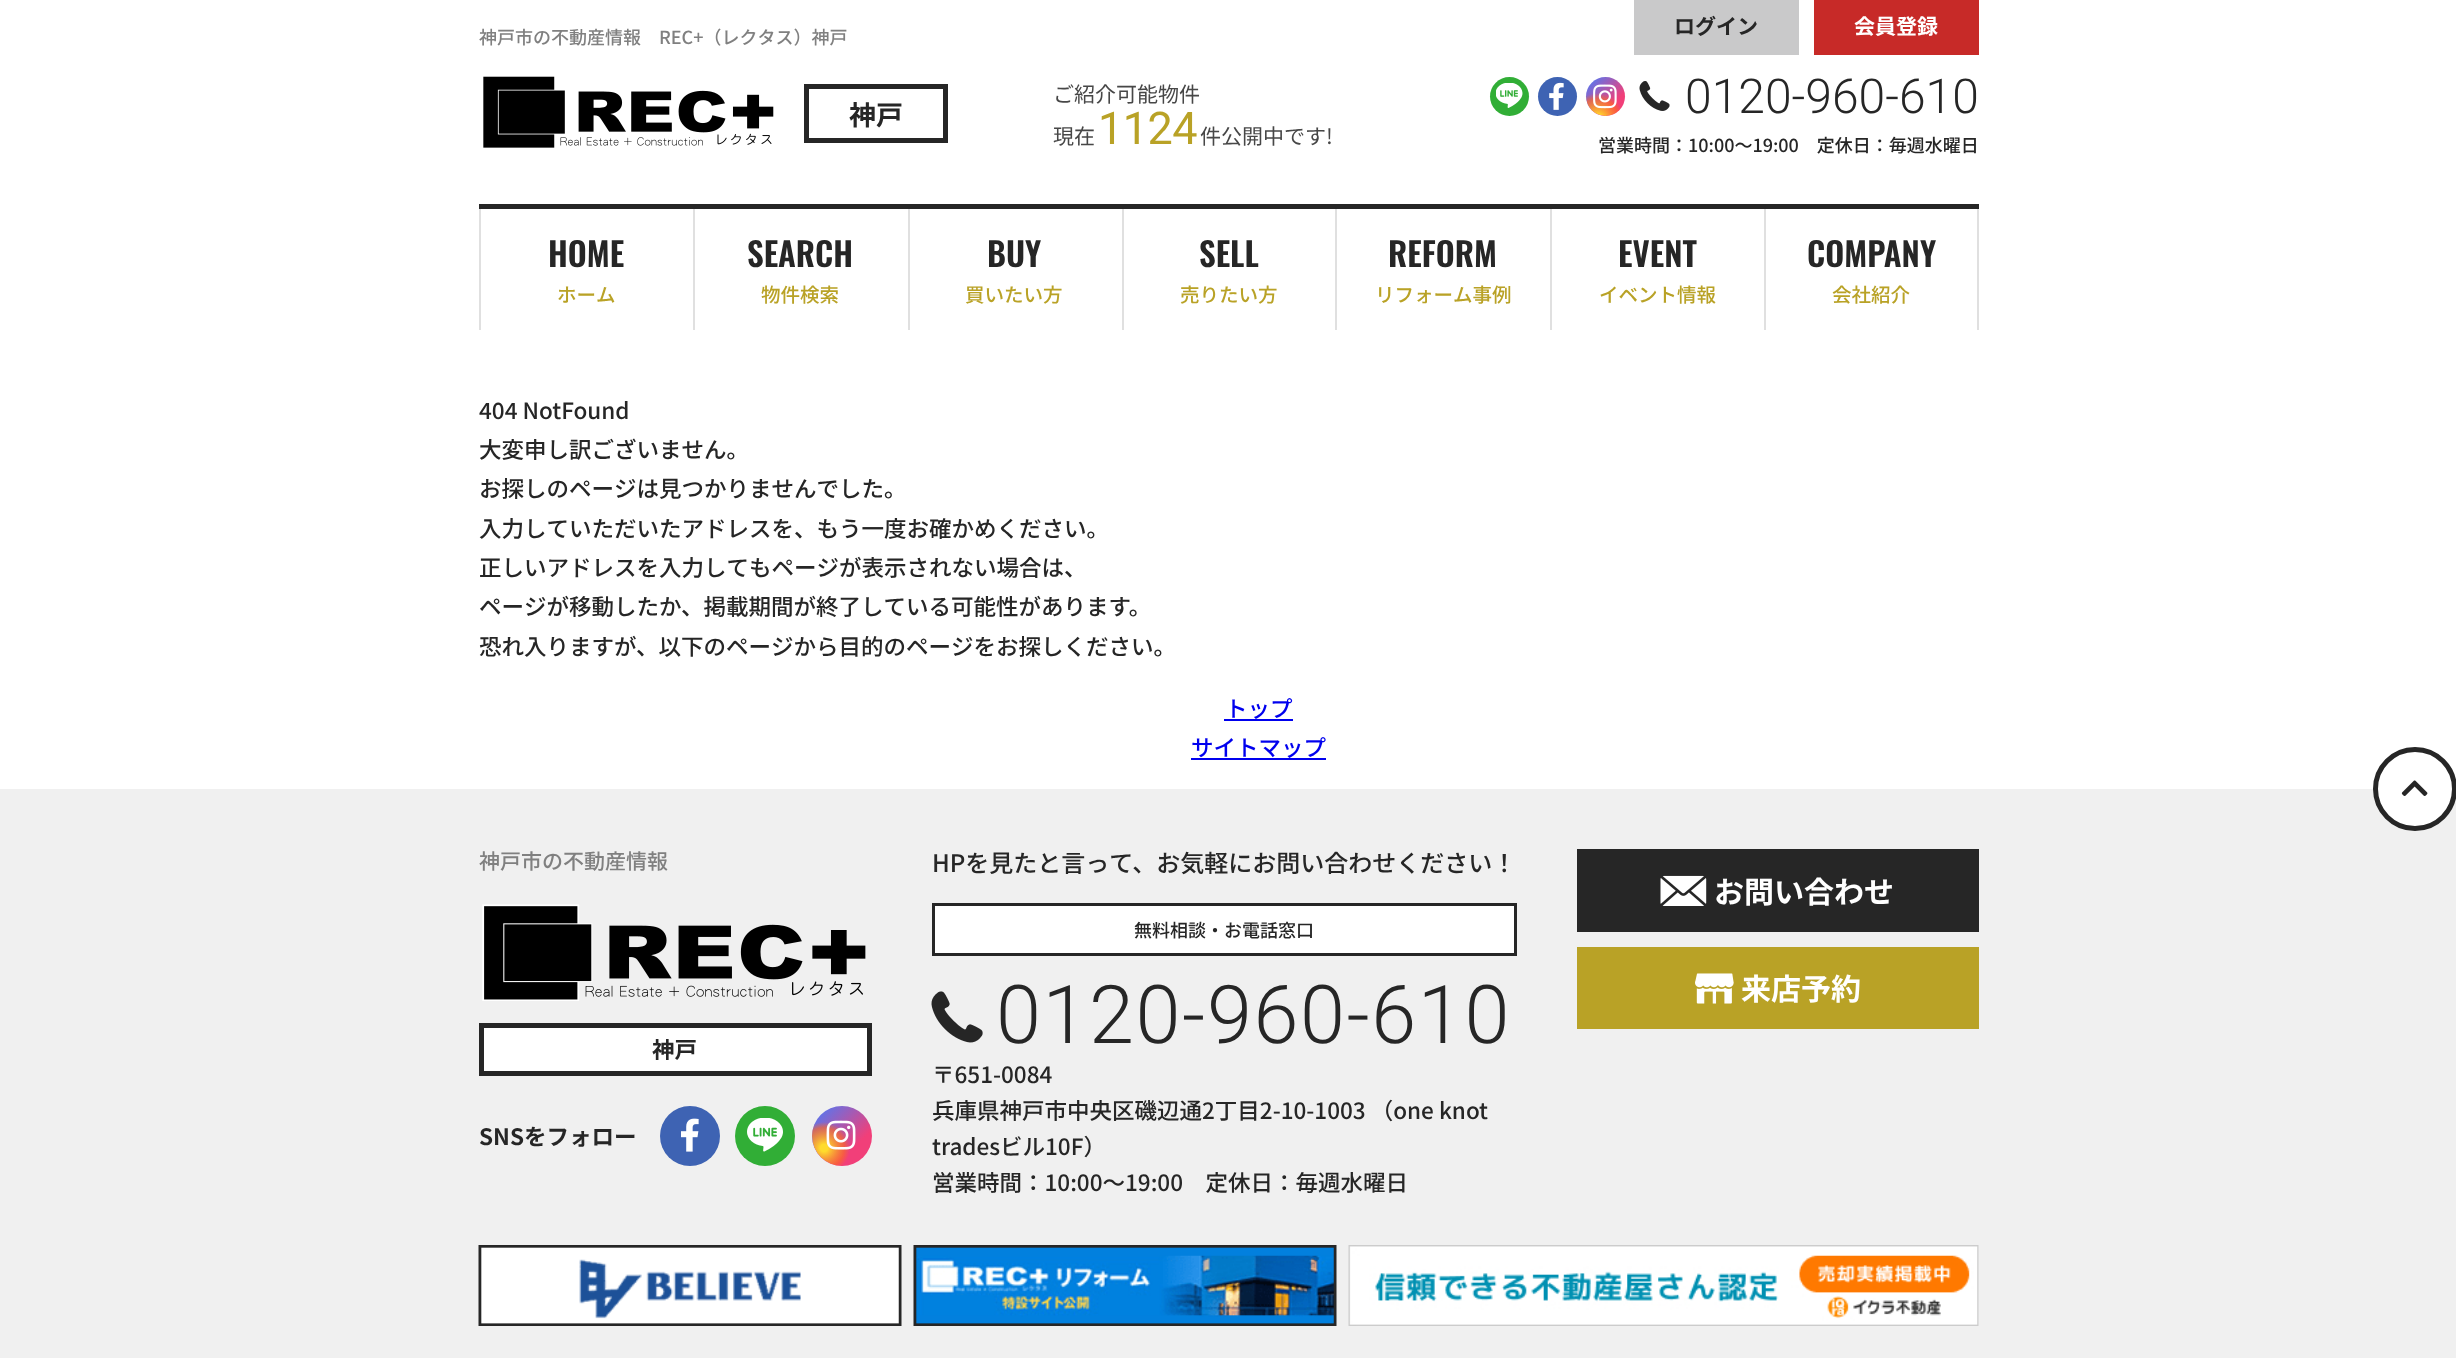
async function draw(canvas) {
  canvas.width = 2456
  canvas.height = 1358
  const ctx = canvas.getContext('2d')
  ctx.miterLimit = 4
  ctx.fontKerning = 'normal'
  async function loadImage(src) {
    const img = new Image()
    img.src = src
    await img.decode()
    return img
  }
  let gradient

  ctx.fillStyle = '#fff'
  ctx.fillRect(0, 0, 2456, 1358)
  ctx.font = '500 18px Noto Sans JP'
  ctx.fillStyle = '#808080'
  ctx.fillText('神戸市の不動産情報　REC+（レクタス）神戸', 479, 44)
  ctx.fillStyle = '#c9c9ca'
  ctx.fillRect(1639, 0, 155, 50)
  ctx.fillRect(1794, 0, 5, 54)
  ctx.fillRect(1634, 50, 165, 5)
  ctx.fillRect(1634, 0, 5, 54)
  ctx.font = 'bold 21px Noto Sans JP'
  ctx.fillStyle = '#262626'
  ctx.fillText('ログイン', 1674, 34)
  ctx.fillStyle = '#c72a28'
  ctx.fillRect(1819, 0, 155, 50)
  ctx.fillRect(1974, 0, 5, 54)
  ctx.fillRect(1814, 50, 165, 5)
  ctx.fillRect(1814, 0, 5, 54)
  ctx.fillStyle = '#fff'
  ctx.fillText('会員登録', 1854, 34)
  ctx.drawImage(await loadImage('image0.png'), 483, 76, 291, 72)
  ctx.strokeStyle = '#262626'
  ctx.lineWidth = 5
  ctx.strokeRect(806.5, 86.5, 139, 54)
  ctx.font = 'bold 27px Noto Sans JP'
  ctx.fillStyle = '#262626'
  ctx.fillText('神戸', 849, 125)
  ctx.font = '21px Noto Sans JP'
  ctx.fillStyle = '#474747'
  ctx.fillText('ご紹介可能物件', 1053, 102)
  ctx.fillText('現在', 1053, 144)
  ctx.letterSpacing = '-0.5px'
  ctx.font = '45px Roboto'
  ctx.fillStyle = '#b9a226'
  ctx.fillText('1124', 1098, 144)
  ctx.letterSpacing = '0px'
  ctx.font = '21px Noto Sans JP'
  ctx.fillStyle = '#474747'
  ctx.fillText('件公開中です!', 1200, 144)
  ctx.fillStyle = '#31ae36'
  ctx.beginPath()
  ctx.arc(1509.5, 96.5, 19.5, 0, 2 * Math.PI)
  ctx.fill()
  ctx.drawImage(await loadImage('image1.png'), 1496, 83, 27, 25)
  ctx.fillStyle = '#3e63b3'
  ctx.beginPath()
  ctx.arc(1557.5, 96.5, 19.5, 0, 2 * Math.PI)
  ctx.fill()
  ctx.drawImage(await loadImage('image2.png'), 1549, 82, 15, 28)
  gradient = ctx.createLinearGradient(1586, 77, 1625, 116)
  gradient.addColorStop(0, '#427eff')
  gradient.addColorStop(0.7, '#f13f79')
  ctx.fillStyle = gradient
  ctx.beginPath()
  ctx.arc(1605.5, 96.5, 19.5, 0, 2 * Math.PI)
  ctx.fill()
  ctx.save()
  ctx.beginPath()
  ctx.roundRect(1586, 77, 39, 39, 19.5)
  ctx.clip()
  gradient = ctx.createRadialGradient(1598, 119, 0, 1598, 119, 37)
  gradient.addColorStop(0.1, '#ffdb2c')
  gradient.addColorStop(0.55, '#ff6922a6')
  gradient.addColorStop(0.7, '#ff692200')
  ctx.fillStyle = gradient
  ctx.beginPath()
  ctx.roundRect(1586, 93, 39, 23, [0, 0, 19.5, 19.5])
  ctx.fill()
  ctx.restore()
  ctx.drawImage(await loadImage('image3.png'), 1593, 84, 24, 25)
  ctx.drawImage(await loadImage('image4.png'), 1639, 81, 31, 30)
  ctx.font = '300 48px Roboto'
  ctx.fillStyle = '#262626'
  ctx.fillText('0120-960-610', 1685, 113)
  ctx.font = '500 18px Noto Sans JP'
  ctx.fillText('営業時間：10:00〜19:00　定休日：毎週水曜日', 1598, 152)
  ctx.fillRect(479, 204, 1500, 5)
  ctx.fillStyle = '#e0e0e0'
  ctx.fillRect(479, 209, 2, 121)
  ctx.font = '600 33px Oswald'
  ctx.fillStyle = '#262626'
  ctx.fillText('HOME', 548, 267)
  ctx.font = '500 19.5px Noto Sans JP'
  ctx.fillStyle = '#b9a226'
  ctx.fillText('ホーム', 557, 302)
  ctx.fillStyle = '#e0e0e0'
  ctx.fillRect(693, 209, 2, 121)
  ctx.font = '600 33px Oswald'
  ctx.fillStyle = '#262626'
  ctx.fillText('SEARCH', 747, 267)
  ctx.font = '500 19.5px Noto Sans JP'
  ctx.fillStyle = '#b9a226'
  ctx.fillText('物件検索', 761, 302)
  ctx.fillStyle = '#e0e0e0'
  ctx.fillRect(908, 209, 2, 121)
  ctx.font = '600 33px Oswald'
  ctx.fillStyle = '#262626'
  ctx.fillText('BUY', 987, 267)
  ctx.font = '500 19.5px Noto Sans JP'
  ctx.fillStyle = '#b9a226'
  ctx.fillText('買いたい方', 965, 302)
  ctx.fillStyle = '#e0e0e0'
  ctx.fillRect(1122, 209, 2, 121)
  ctx.font = '600 33px Oswald'
  ctx.fillStyle = '#262626'
  ctx.fillText('SELL', 1199, 267)
  ctx.font = '500 19.5px Noto Sans JP'
  ctx.fillStyle = '#b9a226'
  ctx.fillText('売りたい方', 1180, 302)
  ctx.fillStyle = '#e0e0e0'
  ctx.fillRect(1335, 209, 2, 121)
  ctx.font = '600 33px Oswald'
  ctx.fillStyle = '#262626'
  ctx.fillText('REFORM', 1388, 267)
  ctx.font = '500 19.5px Noto Sans JP'
  ctx.fillStyle = '#b9a226'
  ctx.fillText('リフォーム事例', 1375, 302)
  ctx.fillStyle = '#e0e0e0'
  ctx.fillRect(1550, 209, 2, 121)
  ctx.font = '600 33px Oswald'
  ctx.fillStyle = '#262626'
  ctx.fillText('EVENT', 1618, 267)
  ctx.font = '500 19.5px Noto Sans JP'
  ctx.fillStyle = '#b9a226'
  ctx.fillText('イベント情報', 1599, 302)
  ctx.fillStyle = '#e0e0e0'
  ctx.fillRect(1764, 209, 2, 121)
  ctx.font = '600 33px Oswald'
  ctx.fillStyle = '#262626'
  ctx.fillText('COMPANY', 1807, 267)
  ctx.font = '500 19.5px Noto Sans JP'
  ctx.fillStyle = '#b9a226'
  ctx.fillText('会社紹介', 1832, 302)
  ctx.fillStyle = '#e0e0e0'
  ctx.fillRect(1977, 209, 2, 121)
  ctx.font = '500 22.5px Noto Sans JP'
  ctx.fillStyle = '#262626'
  ctx.fillText('404 NotFound', 479, 419)
  ctx.fillText('大変申し訳ございません。', 479, 458)
  ctx.fillText('お探しのページは見つかりませんでした。', 479, 497)
  ctx.fillText('入力していただいたアドレスを、もう一度お確かめください。', 479, 537)
  ctx.fillText('正しいアドレスを入力してもページが表示されない場合は、', 479, 576)
  ctx.fillText('ページが移動したか、掲載期間が終了している可能性があります。', 479, 615)
  ctx.fillText('恐れ入りますが、以下のページから目的のページをお探しください。', 479, 655)
  ctx.fillStyle = '#00e'
  ctx.fillText('トップ', 1225, 717)
  ctx.fillRect(1224, 719, 69, 2)
  ctx.fillText('サイトマップ', 1191, 756)
  ctx.fillRect(1191, 758, 135, 2)
  ctx.fillStyle = '#f0f0f0'
  ctx.fillRect(0, 789, 2456, 569)
  ctx.fillStyle = '#fff'
  ctx.beginPath()
  ctx.arc(2415, 789, 39.5, 0, 2 * Math.PI)
  ctx.fill()
  ctx.stroke()
  ctx.drawImage(await loadImage('image5.png'), 2401, 780, 27, 16)
  ctx.font = '500 21px Noto Sans JP'
  ctx.fillStyle = '#808080'
  ctx.fillText('神戸市の不動産情報', 479, 869)
  ctx.drawImage(await loadImage('image6.png'), 482, 904, 384, 97)
  ctx.fillStyle = '#fff'
  ctx.beginPath()
  ctx.rect(481.5, 1025.5, 388, 48)
  ctx.fill()
  ctx.stroke()
  ctx.font = 'bold 22.5px Noto Sans JP'
  ctx.fillStyle = '#262626'
  ctx.fillText('神戸', 652, 1058)
  ctx.fillText('SNSをフォロー', 479, 1145)
  ctx.fillStyle = '#3e63b3'
  ctx.beginPath()
  ctx.arc(690, 1136, 30, 0, 2 * Math.PI)
  ctx.fill()
  ctx.drawImage(await loadImage('image7.png'), 681, 1118, 18, 34)
  ctx.fillStyle = '#31ae36'
  ctx.beginPath()
  ctx.arc(765, 1136, 30, 0, 2 * Math.PI)
  ctx.fill()
  ctx.drawImage(await loadImage('image8.png'), 747, 1118, 36, 34)
  gradient = ctx.createLinearGradient(812, 1106, 872, 1166)
  gradient.addColorStop(0, '#427eff')
  gradient.addColorStop(0.7, '#f13f79')
  ctx.fillStyle = gradient
  ctx.beginPath()
  ctx.arc(842, 1136, 30, 0, 2 * Math.PI)
  ctx.fill()
  ctx.save()
  ctx.beginPath()
  ctx.roundRect(812, 1106, 60, 60, 30)
  ctx.clip()
  gradient = ctx.createRadialGradient(824, 1148, 0, 824, 1148, 37)
  gradient.addColorStop(0.1, '#ffdb2c')
  gradient.addColorStop(0.55, '#ff6922a6')
  gradient.addColorStop(0.7, '#ff692200')
  ctx.fillStyle = gradient
  ctx.beginPath()
  ctx.roundRect(812, 1122, 39, 44, [0, 0, 0, 30])
  ctx.fill()
  ctx.restore()
  ctx.drawImage(await loadImage('image9.png'), 826, 1120, 30, 30)
  ctx.font = '500 24px Noto Sans JP'
  ctx.fillStyle = '#262626'
  ctx.fillText('HPを見たと言って、お気軽にお問い合わせください！', 932, 872)
  ctx.fillStyle = '#fff'
  ctx.beginPath()
  ctx.rect(933.5, 904.5, 582, 50)
  ctx.fill()
  ctx.lineWidth = 3
  ctx.stroke()
  ctx.font = '500 18px Noto Sans JP'
  ctx.fillStyle = '#262626'
  ctx.fillText('無料相談・お電話窓口', 1134, 937)
  ctx.drawImage(await loadImage('image10.png'), 931, 991, 52, 52)
  ctx.letterSpacing = '1.6px'
  ctx.font = '300 81px Roboto'
  ctx.fillText('0120-960-610', 996, 1043)
  ctx.letterSpacing = '0px'
  ctx.font = '500 22.5px Noto Sans JP'
  ctx.fillText('〒651-0084', 932, 1083)
  ctx.fillText('兵庫県神戸市中央区磯辺通2丁目2-10-1003 （one knot', 932, 1119)
  ctx.fillText('tradesビル10F）', 932, 1155)
  ctx.fillText('営業時間：10:00〜19:00　定休日：毎週水曜日', 932, 1191)
  ctx.fillRect(1577, 849, 402, 83)
  ctx.drawImage(await loadImage('image11.png'), 1660, 875, 47, 31)
  ctx.font = 'bold 30px Noto Sans JP'
  ctx.fillStyle = '#fff'
  ctx.fillText('お問い合わせ', 1714, 903)
  ctx.fillStyle = '#b9a226'
  ctx.fillRect(1577, 947, 402, 82)
  ctx.drawImage(await loadImage('image12.png'), 1695, 973, 39, 31)
  ctx.fillStyle = '#fff'
  ctx.fillText('来店予約', 1741, 1000)
  ctx.drawImage(await loadImage('image13.png'), 478, 1245, 424, 81)
  ctx.drawImage(await loadImage('image14.png'), 913, 1245, 424, 81)
  ctx.drawImage(await loadImage('image15.png'), 1348, 1245, 631, 81)
}

draw(document.querySelector('canvas'))
